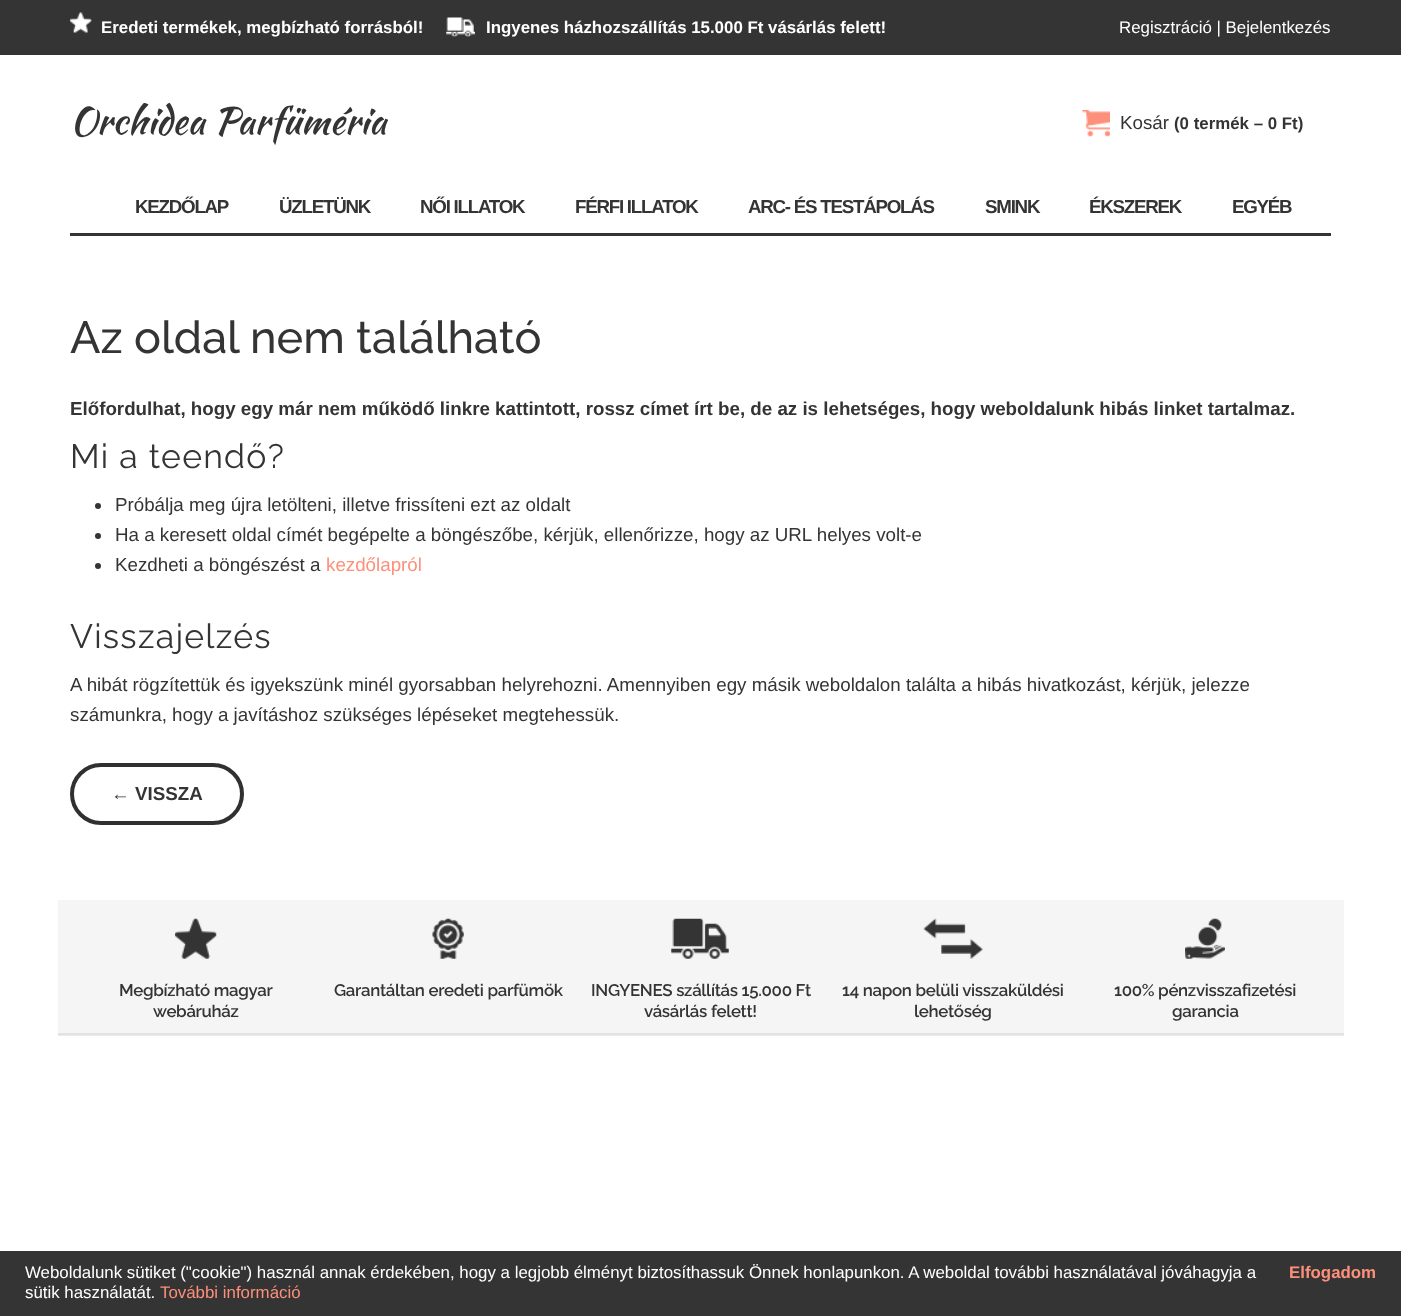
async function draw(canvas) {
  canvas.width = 1401
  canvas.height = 1316
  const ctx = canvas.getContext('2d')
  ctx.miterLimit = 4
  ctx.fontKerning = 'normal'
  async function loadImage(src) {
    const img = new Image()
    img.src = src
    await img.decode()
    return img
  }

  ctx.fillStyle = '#fff'
  ctx.fillRect(0, 0, 1401, 1316)
  ctx.fillStyle = '#ebebeb'
  ctx.fillRect(58, 1035, 1286, 1)
  ctx.fillStyle = '#343434'
  ctx.fillRect(0, 0, 1401, 55)
  ctx.drawImage(await loadImage('image0.png'), 70, 12, 22, 21)
  ctx.font = 'bold 16.88px Arimo'
  ctx.fillStyle = '#fff'
  ctx.fillText('Eredeti termékek, megbízható forrásból!', 101, 33)
  ctx.drawImage(await loadImage('image1.png'), 446, 17, 29, 20)
  ctx.fillText('Ingyenes házhozszállítás 15.000 Ft vásárlás felett!', 486, 33)
  ctx.font = '16.88px Arimo'
  ctx.fillText('Regisztráció | Bejelentkezés', 1119, 33)
  ctx.font = '37.5px Kaushan Script'
  ctx.fillStyle = '#343434'
  ctx.fillText('Orchidea Parfüméria', 70, 134)
  ctx.drawImage(await loadImage('image2.png'), 1082, 110, 28, 27)
  ctx.font = '18.75px Arimo'
  ctx.fillText('Kosár', 1120, 129)
  ctx.font = 'bold 16.88px Arimo'
  ctx.fillText('(0 termék – 0 Ft)', 1174, 129)
  ctx.fillRect(70, 233, 1261, 3)
  ctx.letterSpacing = '-1.25px'
  ctx.font = 'bold 18.75px Arimo'
  ctx.fillText('KEZDŐLAP', 135, 213)
  ctx.fillText('ÜZLETÜNK', 279, 213)
  ctx.fillText('NŐI ILLATOK', 420, 213)
  ctx.fillText('FÉRFI ILLATOK', 575, 213)
  ctx.fillText('ARC- ÉS TESTÁPOLÁS', 748, 213)
  ctx.fillText('SMINK', 985, 213)
  ctx.fillText('ÉKSZEREK', 1089, 213)
  ctx.fillText('EGYÉB', 1232, 213)
  ctx.letterSpacing = '0px'
  ctx.font = '500 45px Raleway'
  ctx.fillText('Az oldal nem található', 70, 353)
  ctx.font = 'bold 18.75px Arimo'
  ctx.fillText('Előfordulhat, hogy egy már nem működő linkre kattintott, rossz címet írt be, de az is lehetséges, hogy weboldalunk hibás linket tartalmaz.', 70, 415)
  ctx.letterSpacing = '1.25px'
  ctx.font = '33.75px Raleway'
  ctx.fillText('Mi a teendő?', 70, 468)
  ctx.beginPath()
  ctx.arc(98, 506, 3, 0, 2 * Math.PI)
  ctx.fill()
  ctx.letterSpacing = '0px'
  ctx.font = '18.75px Arimo'
  ctx.fillText('Próbálja meg újra letölteni, illetve frissíteni ezt az oldalt', 115, 511)
  ctx.beginPath()
  ctx.arc(98, 536, 3, 0, 2 * Math.PI)
  ctx.fill()
  ctx.fillText('Ha a keresett oldal címét begépelte a böngészőbe, kérjük, ellenőrizze, hogy az URL helyes volt-e', 115, 541)
  ctx.beginPath()
  ctx.arc(98, 566, 3, 0, 2 * Math.PI)
  ctx.fill()
  ctx.fillText('Kezdheti a böngészést a', 115, 571)
  ctx.fillStyle = '#fd907a'
  ctx.fillText('kezdőlapról', 326, 571)
  ctx.letterSpacing = '1.25px'
  ctx.font = '33.75px Raleway'
  ctx.fillStyle = '#343434'
  ctx.fillText('Visszajelzés', 70, 648)
  ctx.letterSpacing = '0px'
  ctx.font = '18.75px Arimo'
  ctx.fillText('A hibát rögzítettük és igyekszünk minél gyorsabban helyrehozni. Amennyiben egy másik weboldalon találta a hibás hivatkozást, kérjük, jelezze', 70, 691)
  ctx.fillText('számunkra, hogy a javításhoz szükséges lépéseket megtehessük.', 70, 721)
  ctx.beginPath()
  ctx.roundRect(72, 765, 170, 58, 29)
  ctx.strokeStyle = '#303030'
  ctx.lineWidth = 4
  ctx.stroke()
  ctx.font = 'bold 18.75px Liberation Sans'
  ctx.fillText('←', 111, 800)
  ctx.font = 'bold 18.75px Arimo'
  ctx.fillText('VISSZA', 135, 800)
  ctx.fillStyle = '#f5f5f5'
  ctx.fillRect(58, 900, 1286, 133)
  ctx.fillStyle = '#e2e2e2'
  ctx.fillRect(58, 1033, 1286, 2)
  ctx.drawImage(await loadImage('image3.png'), 175, 918, 42, 41)
  ctx.letterSpacing = '-0.3px'
  ctx.font = '600 16.88px Raleway'
  ctx.fillStyle = '#343434'
  ctx.fillText('Megbízható magyar', 119, 996)
  ctx.fillText('webáruház', 153, 1017)
  ctx.drawImage(await loadImage('image4.png'), 432, 918, 32, 41)
  ctx.fillText('Garantáltan eredeti parfümök', 334, 996)
  ctx.drawImage(await loadImage('image5.png'), 671, 918, 58, 41)
  ctx.fillText('INGYENES szállítás 15.000 Ft', 591, 996)
  ctx.fillText('vásárlás felett!', 644, 1017)
  ctx.drawImage(await loadImage('image6.png'), 923, 918, 60, 41)
  ctx.fillText('14 napon belüli visszaküldési', 842, 996)
  ctx.fillText('lehetőség', 914, 1017)
  ctx.drawImage(await loadImage('image7.png'), 1185, 918, 40, 41)
  ctx.fillText('100% pénzvisszafizetési', 1114, 996)
  ctx.fillText('garancia', 1172, 1017)
  ctx.fillRect(0, 1251, 1401, 65)
  ctx.letterSpacing = '0px'
  ctx.font = '16.88px Arimo'
  ctx.fillStyle = '#fff'
  ctx.fillText('Weboldalunk sütiket ("cookie") használ annak érdekében, hogy a legjobb élményt biztosíthassuk Önnek honlapunkon. A weboldal további használatával jóváhagyja a', 25, 1278)
  ctx.fillText('sütik használatát.', 25, 1298)
  ctx.fillStyle = '#fd907a'
  ctx.fillText('További információ', 160, 1298)
  ctx.font = 'bold 16.88px Arimo'
  ctx.fillText('Elfogadom', 1289, 1278)
}

draw(document.querySelector('canvas'))
